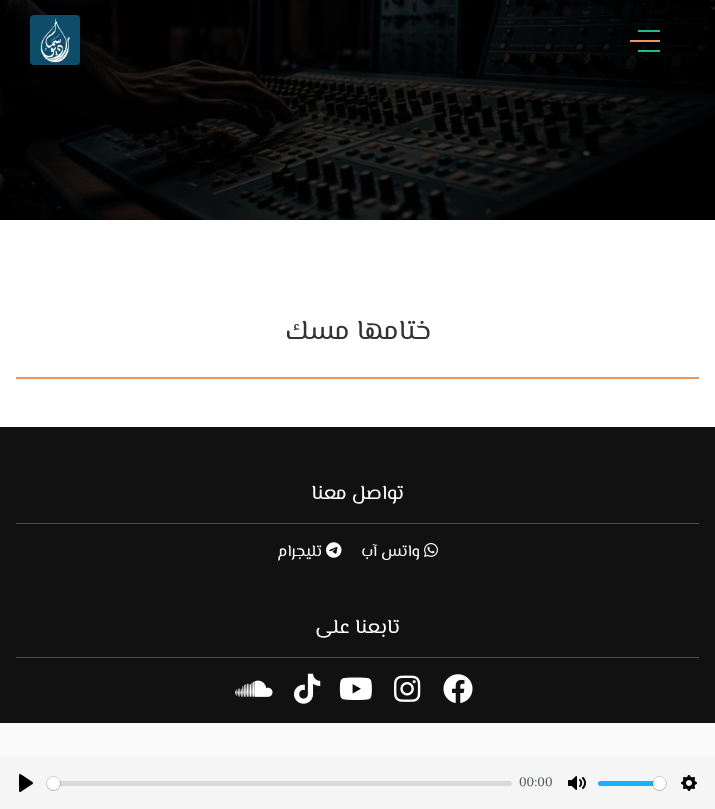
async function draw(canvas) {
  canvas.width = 715
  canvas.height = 809
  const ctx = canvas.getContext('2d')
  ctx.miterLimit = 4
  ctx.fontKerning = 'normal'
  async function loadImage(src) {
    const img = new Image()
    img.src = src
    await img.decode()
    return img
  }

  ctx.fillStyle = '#fff'
  ctx.fillRect(0, 0, 715, 809)
  ctx.drawImage(await loadImage('image0.png'), 0, 0, 715, 220)
  ctx.fillStyle = '#f1955d'
  ctx.fillRect(630, 40, 30, 2)
  ctx.fillStyle = '#1fba8f'
  ctx.fillRect(638, 30, 22, 2)
  ctx.fillRect(638, 50, 22, 2)
  ctx.fillStyle = '#0e4d69'
  ctx.beginPath()
  ctx.roundRect(30, 15, 50, 50, 4)
  ctx.fill()
  ctx.drawImage(await loadImage('image1.png'), 40, 18, 30, 45)
  ctx.direction = 'rtl'
  ctx.font = '27.5px El Messiri'
  ctx.fillStyle = '#333'
  ctx.fillText('ختامها مسك', 431, 339)
  ctx.fillStyle = '#f1955d'
  ctx.fillRect(16, 377, 683, 2)
  ctx.fillStyle = '#111'
  ctx.fillRect(0, 427, 715, 296)
  ctx.font = '20px El Messiri'
  ctx.fillStyle = '#fff'
  ctx.fillText('تواصل معنا', 404, 499)
  ctx.fillStyle = '#4d4d4d'
  ctx.fillRect(16, 523, 683, 1)
  ctx.drawImage(await loadImage('image2.png'), 424, 543, 14, 14)
  ctx.font = '16px El Messiri'
  ctx.fillStyle = '#fff'
  ctx.fillText('واتس آب', 420, 556)
  ctx.drawImage(await loadImage('image3.png'), 326, 542, 16, 16)
  ctx.fillText('تليجرام', 322, 556)
  ctx.font = '20px El Messiri'
  ctx.fillText('تابعنا على', 400, 633)
  ctx.fillStyle = '#4d4d4d'
  ctx.fillRect(16, 657, 683, 1)
  ctx.drawImage(await loadImage('image4.png'), 443, 674, 30, 29)
  ctx.drawImage(await loadImage('image5.png'), 394, 675, 27, 27)
  ctx.drawImage(await loadImage('image6.png'), 339, 677, 33, 23)
  ctx.drawImage(await loadImage('image7.png'), 294, 673, 27, 31)
  ctx.drawImage(await loadImage('image8.png'), 235, 680, 38, 17)
  ctx.fillStyle = '#fafafa'
  ctx.fillRect(0, 723, 715, 34)
  ctx.fillStyle = '#f5f5f5'
  ctx.fillRect(0, 757, 715, 52)
  ctx.drawImage(await loadImage('image9.png'), 681, 775, 16, 16)
  ctx.fillStyle = '#1aafff'
  ctx.beginPath()
  ctx.roundRect(598, 781, 68, 5, 2.5)
  ctx.fill()
  ctx.beginPath()
  ctx.arc(659.5, 783.5, 7, 0, 2 * Math.PI)
  ctx.strokeStyle = '#23282f33'
  ctx.stroke()
  ctx.fillStyle = '#23282f26'
  ctx.filter = 'blur(0.5px)'
  ctx.beginPath()
  ctx.roundRect(653, 778, 13, 13, 6.5)
  ctx.fill()
  ctx.filter = 'none'
  ctx.fillStyle = '#fff'
  ctx.beginPath()
  ctx.arc(659.5, 783.5, 6.5, 0, 2 * Math.PI)
  ctx.fill()
  ctx.drawImage(await loadImage('image10.png'), 568, 776, 18, 14)
  ctx.direction = 'ltr'
  ctx.font = '13px El Messiri'
  ctx.fillStyle = '#4f5b5f'
  ctx.fillText('00:00', 519, 786)
  ctx.fillStyle = '#c1c8d199'
  ctx.beginPath()
  ctx.roundRect(47, 781, 465, 5, 2.5)
  ctx.fill()
  ctx.beginPath()
  ctx.arc(53.5, 783.5, 7, 0, 2 * Math.PI)
  ctx.stroke()
  ctx.fillStyle = '#23282f26'
  ctx.filter = 'blur(0.5px)'
  ctx.beginPath()
  ctx.roundRect(47, 778, 13, 13, 6.5)
  ctx.fill()
  ctx.filter = 'none'
  ctx.fillStyle = '#f5f5f5'
  ctx.beginPath()
  ctx.moveTo(50.5, 773.5)
  ctx.lineTo(56.5, 773.5)
  ctx.lineTo(53.5, 776.5)
  ctx.closePath()
  ctx.fill()
  ctx.fillStyle = '#fff'
  ctx.beginPath()
  ctx.arc(53.5, 783.5, 6.5, 0, 2 * Math.PI)
  ctx.fill()
  ctx.drawImage(await loadImage('image11.png'), 19, 774, 14, 18)
}

draw(document.querySelector('canvas'))
